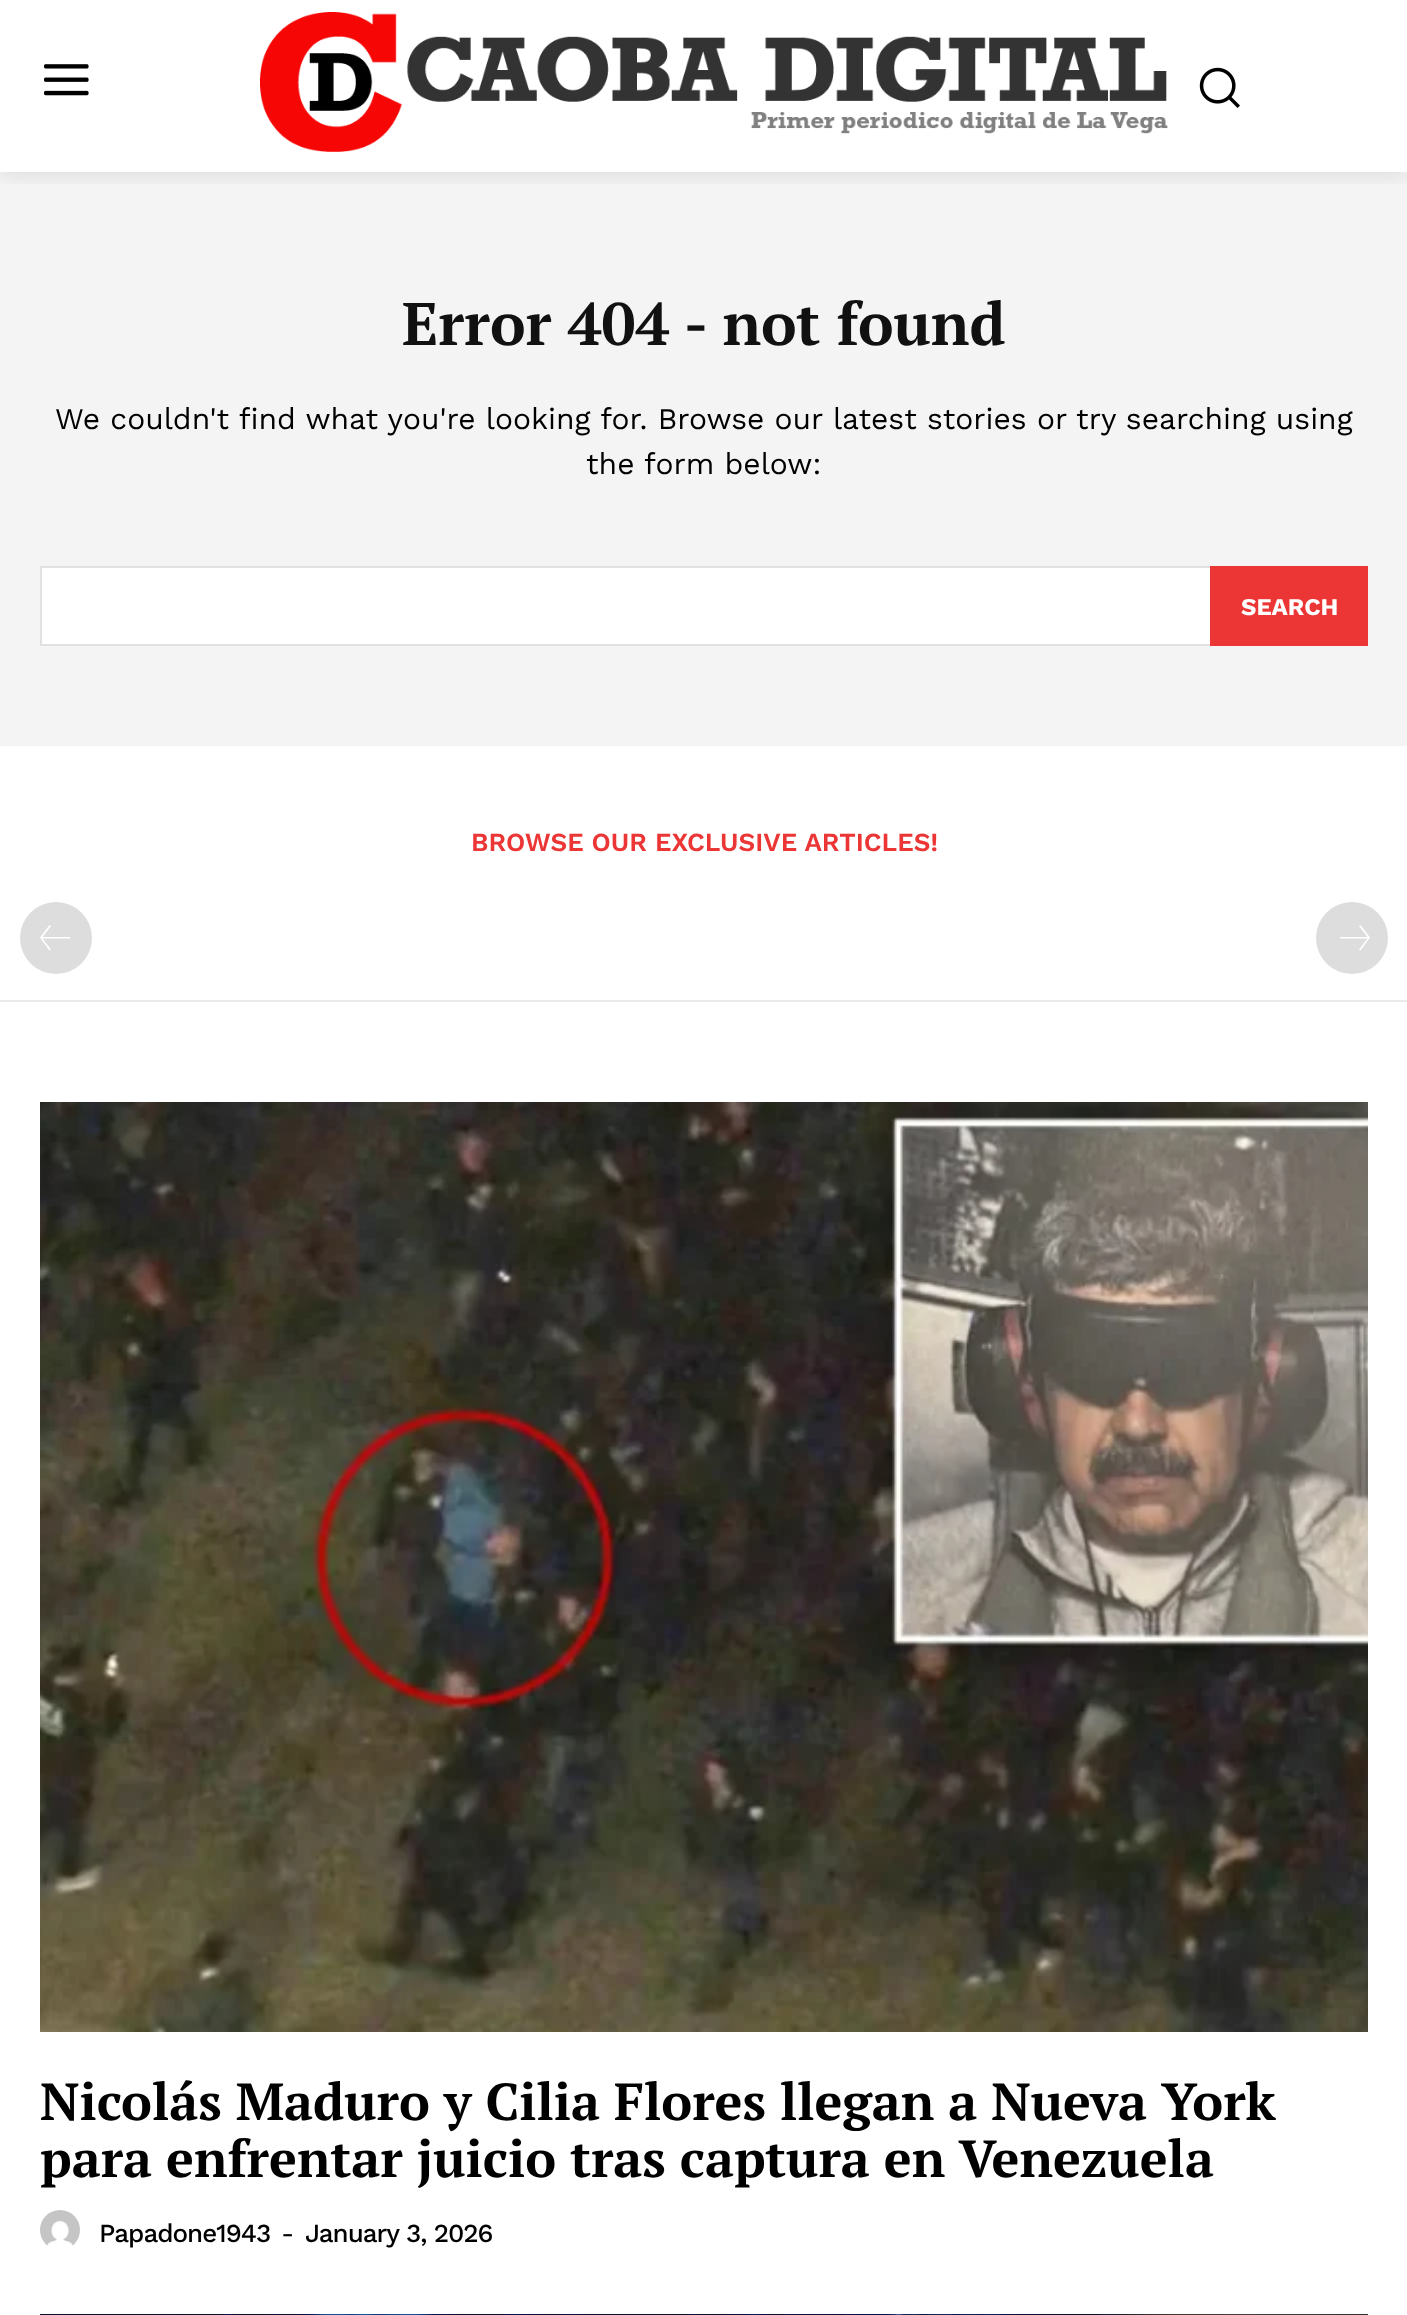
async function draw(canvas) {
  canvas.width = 1407
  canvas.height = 2315
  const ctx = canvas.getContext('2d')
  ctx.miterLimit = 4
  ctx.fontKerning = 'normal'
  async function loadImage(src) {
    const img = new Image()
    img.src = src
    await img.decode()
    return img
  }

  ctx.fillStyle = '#fff'
  ctx.fillRect(0, 0, 1407, 2315)
  ctx.drawImage(await loadImage('image0.png'), 44, 64, 45, 32)
  ctx.drawImage(await loadImage('image1.png'), 260, 12, 908, 140)
  ctx.drawImage(await loadImage('image2.png'), 1199, 67, 41, 41)
  ctx.fillStyle = '#f4f4f4'
  ctx.fillRect(0, 172, 1407, 574)
  ctx.save()
  ctx.beginPath()
  ctx.rect(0, 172, 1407, 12)
  ctx.clip()
  ctx.fillStyle = '#00000017'
  ctx.filter = 'blur(10px)'
  ctx.beginPath()
  ctx.rect(0, 4, 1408, 172)
  ctx.fill()
  ctx.filter = 'none'
  ctx.restore()
  ctx.font = 'bold 60px PT Serif'
  ctx.fillStyle = '#111'
  ctx.fillText('Error 404 - not found', 402, 345)
  ctx.font = '30px Work Sans'
  ctx.fillStyle = '#000'
  ctx.fillText('We couldn\'t find what you\'re looking for. Browse our latest stories or try searching using', 55, 429)
  ctx.fillText('the form below:', 586, 474)
  ctx.fillStyle = '#fff'
  ctx.fillRect(42, 568, 1168, 76)
  ctx.strokeStyle = '#e1e1e1'
  ctx.lineWidth = 2
  ctx.strokeRect(41, 567, 1326, 78)
  ctx.fillStyle = '#ec3535'
  ctx.fillRect(1210, 566, 158, 80)
  ctx.font = 'bold 24px Work Sans'
  ctx.fillStyle = '#fff'
  ctx.fillText('SEARCH', 1241, 615)
  ctx.font = '600 26px Work Sans'
  ctx.fillStyle = '#ec3535'
  ctx.fillText('BROWSE OUR EXCLUSIVE ARTICLES!', 471, 851)
  ctx.fillStyle = '#ddd'
  ctx.beginPath()
  ctx.arc(56, 938, 36, 0, 2 * Math.PI)
  ctx.fill()
  ctx.fillStyle = '#fff'
  ctx.beginPath()
  ctx.moveTo(51, 949.5)
  ctx.lineTo(42.5, 938.5)
  ctx.lineTo(70, 938.5)
  ctx.lineTo(70, 937)
  ctx.lineTo(42.5, 937)
  ctx.lineTo(51, 926)
  ctx.lineTo(49.5, 925)
  ctx.lineTo(40, 937.5)
  ctx.lineTo(49.5, 950.5)
  ctx.closePath()
  ctx.fill()
  ctx.fillStyle = '#ddd'
  ctx.beginPath()
  ctx.arc(1352, 938, 36, 0, 2 * Math.PI)
  ctx.fill()
  ctx.fillStyle = '#fff'
  ctx.beginPath()
  ctx.moveTo(1359, 949.5)
  ctx.lineTo(1360.5, 950.5)
  ctx.lineTo(1370, 937.5)
  ctx.lineTo(1360.5, 925)
  ctx.lineTo(1359, 926)
  ctx.lineTo(1367.5, 937)
  ctx.lineTo(1340, 937)
  ctx.lineTo(1340, 938.5)
  ctx.lineTo(1367.5, 938.5)
  ctx.closePath()
  ctx.fill()
  ctx.fillStyle = '#eaeaea'
  ctx.fillRect(0, 1000, 1407, 2)
  ctx.drawImage(await loadImage('image3.png'), 40, 1102, 1328, 930)
  ctx.font = 'bold 52px PT Serif'
  ctx.fillStyle = '#000'
  ctx.fillText('Nicolás Maduro y Cilia Flores llegan a Nueva York', 40, 2120)
  ctx.fillText('para enfrentar juicio tras captura en Venezuela', 40, 2177)
  ctx.drawImage(await loadImage('image4.png'), 40, 2210, 40, 36)
  ctx.letterSpacing = '-1px'
  ctx.font = '500 26px Work Sans'
  ctx.fillText('Papadone1943', 99, 2242)
  ctx.font = '26px Work Sans'
  ctx.fillText('-', 281, 2242)
  ctx.font = '500 26px Work Sans'
  ctx.fillText('January 3, 2026', 305, 2242)
  ctx.drawImage(await loadImage('image5.png'), 40, 2314, 1328, 1)
}

draw(document.querySelector('canvas'))
